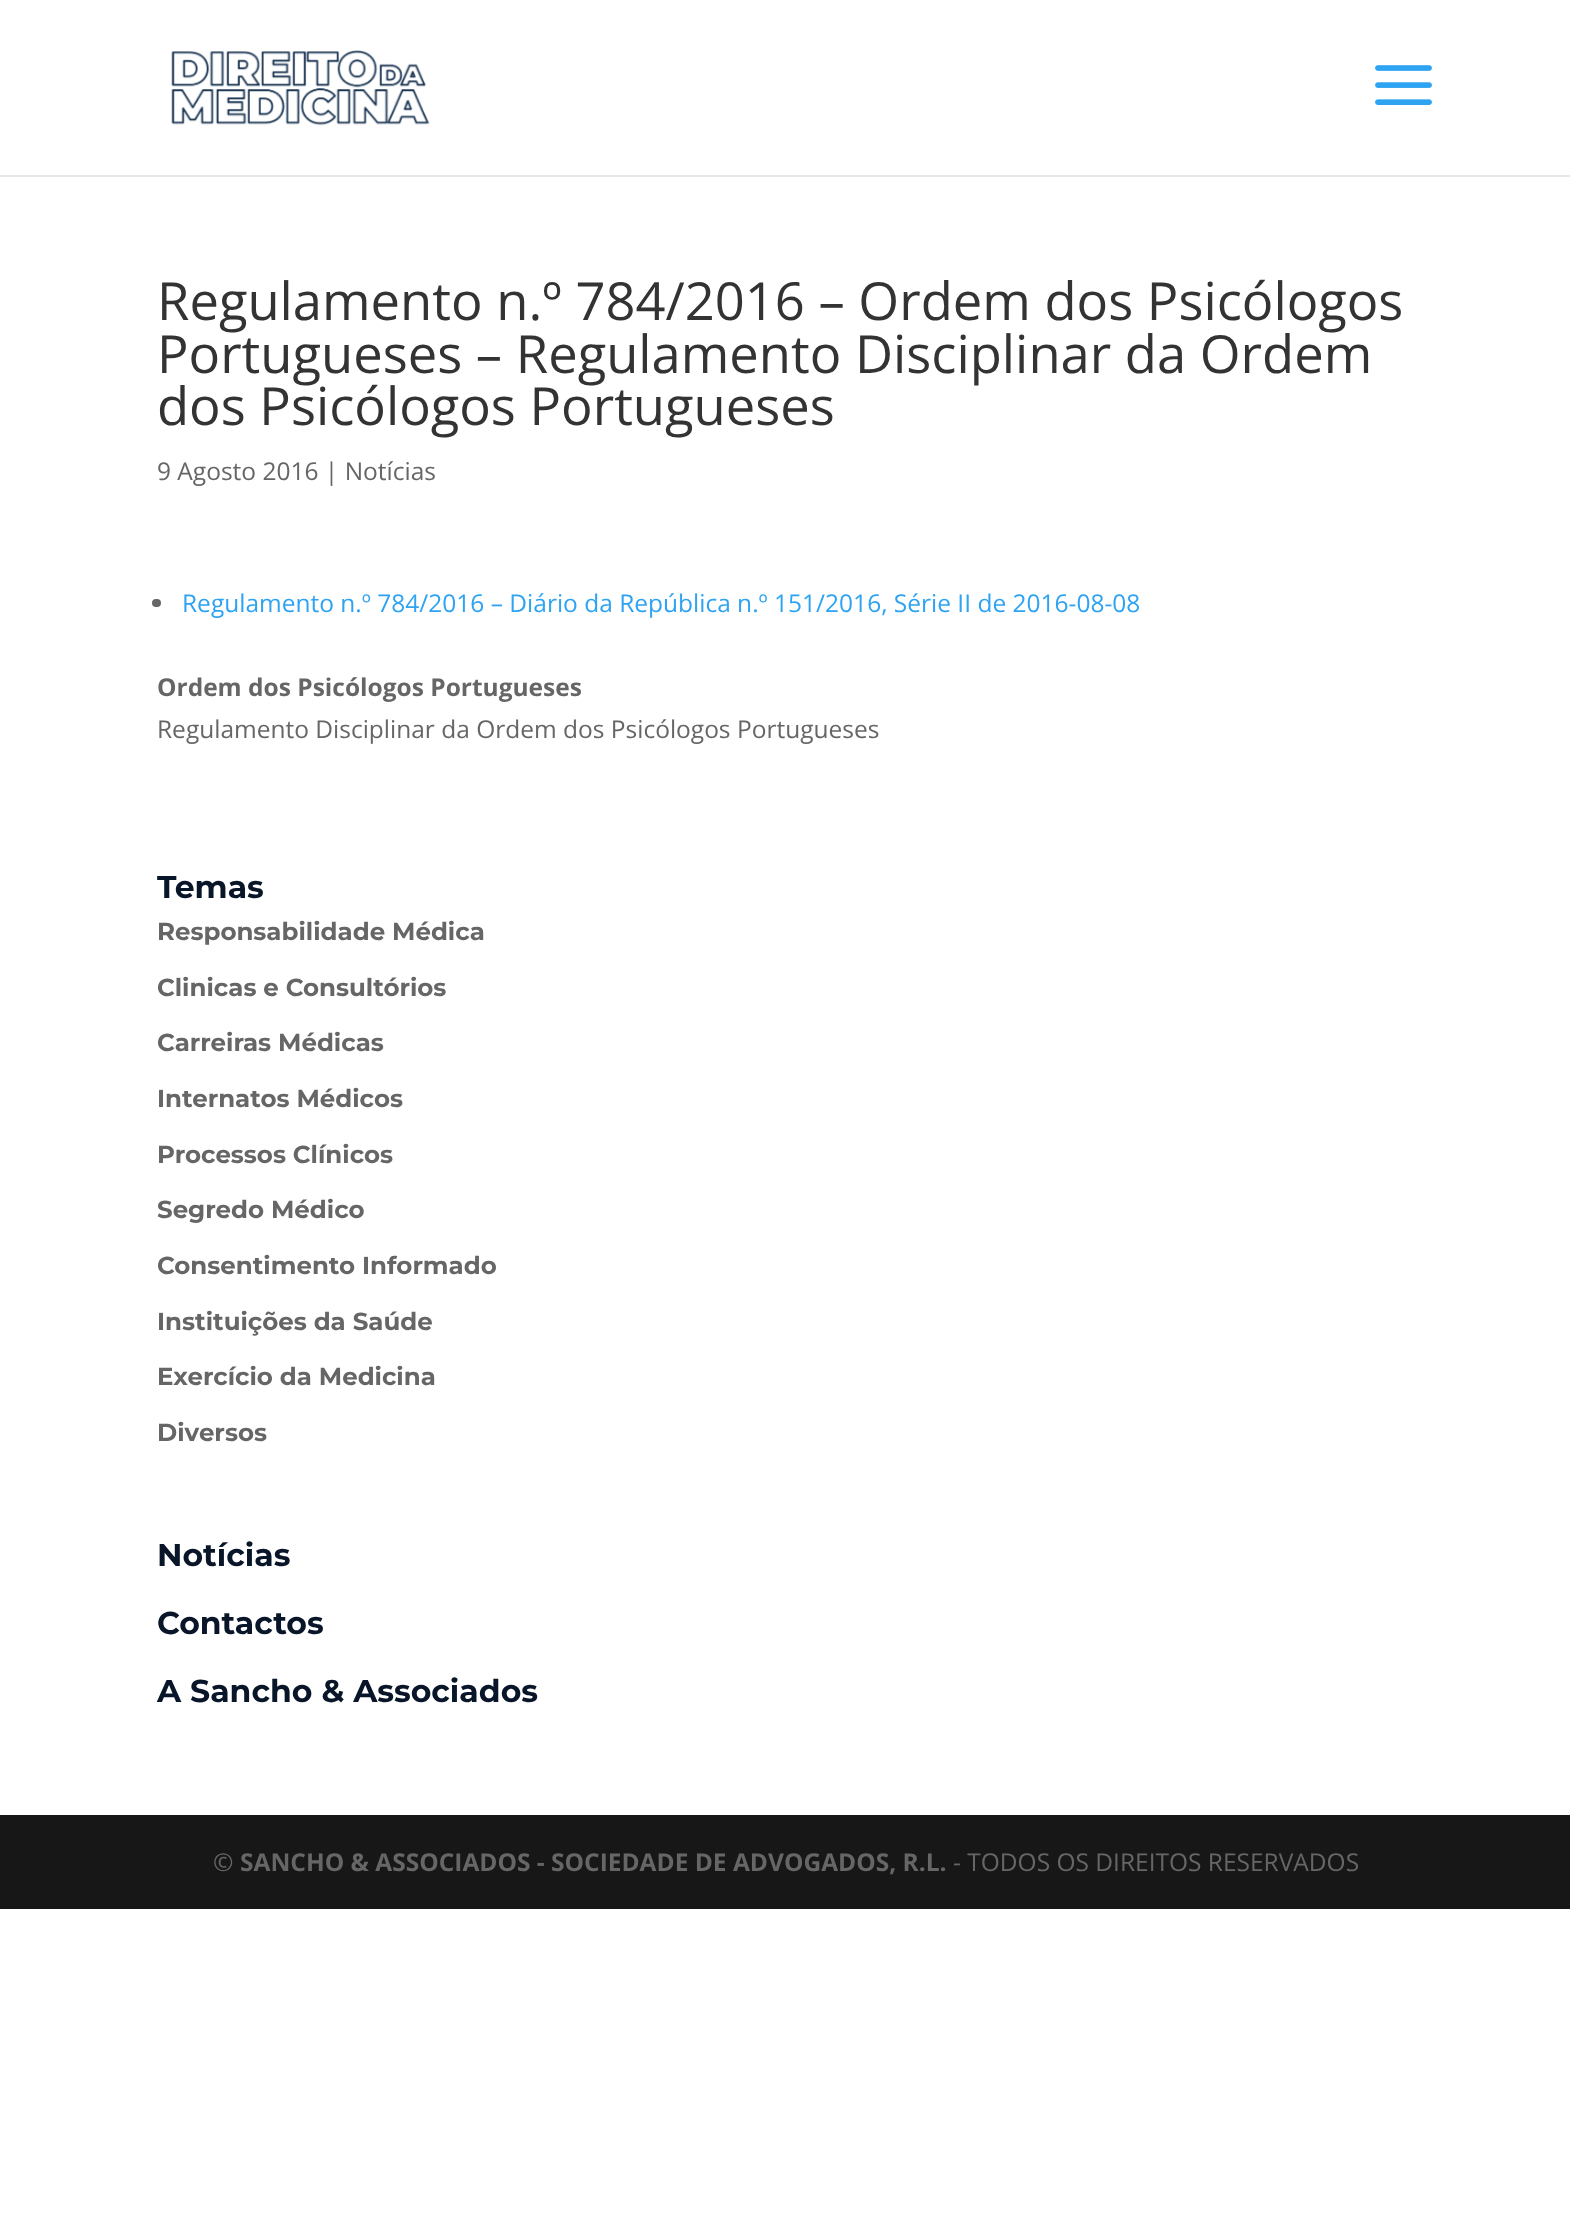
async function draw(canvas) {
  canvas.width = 1570
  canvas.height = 2218
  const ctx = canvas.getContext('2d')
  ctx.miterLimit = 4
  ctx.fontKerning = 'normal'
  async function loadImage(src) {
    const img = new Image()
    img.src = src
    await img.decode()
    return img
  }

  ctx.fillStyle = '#fff'
  ctx.fillRect(0, 0, 1570, 2218)
  ctx.fillStyle = '#e6e6e6'
  ctx.beginPath()
  ctx.moveTo(0, 175)
  ctx.lineTo(0, 177)
  ctx.lineTo(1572, 177)
  ctx.lineTo(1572, 2)
  ctx.lineTo(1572, 175)
  ctx.closePath()
  ctx.fill()
  ctx.drawImage(await loadImage('image0.png'), 171, 50, 259, 76)
  ctx.drawImage(await loadImage('image1.png'), 1375, 65, 57, 40)
  ctx.font = '52.5px Open Sans'
  ctx.fillStyle = '#333'
  ctx.fillText('Regulamento n.º 784/2016 – Ordem dos Psicólogos', 157, 320)
  ctx.fillText('Portugueses – Regulamento Disciplinar da Ordem', 157, 373)
  ctx.fillText('dos Psicólogos Portugueses', 157, 425)
  ctx.font = '24.5px Open Sans'
  ctx.fillStyle = '#666'
  ctx.fillText('9 Agosto 2016 | Notícias', 157, 480)
  ctx.beginPath()
  ctx.roundRect(152, 599, 9, 8, 4)
  ctx.fill()
  ctx.fillStyle = '#2ea3f2'
  ctx.fillText('Regulamento n.º 784/2016 – Diário da República n.º 151/2016, Série II de 2016-08-08', 182, 612)
  ctx.font = 'bold 24.5px Open Sans'
  ctx.fillStyle = '#666'
  ctx.fillText('Ordem dos Psicólogos Portugueses', 157, 696)
  ctx.font = '24.5px Open Sans'
  ctx.fillText('Regulamento Disciplinar da Ordem dos Psicólogos Portugueses', 157, 738)
  ctx.font = 'bold 31.5px Montserrat'
  ctx.fillStyle = '#091629'
  ctx.fillText('Temas', 157, 898)
  ctx.font = 'bold 24.5px Montserrat'
  ctx.fillStyle = '#666'
  ctx.fillText('Responsabilidade Médica', 157, 940)
  ctx.fillText('Clinicas e Consultórios', 157, 996)
  ctx.fillText('Carreiras Médicas', 157, 1051)
  ctx.fillText('Internatos Médicos', 157, 1107)
  ctx.fillText('Processos Clínicos', 157, 1163)
  ctx.fillText('Segredo Médico', 157, 1218)
  ctx.fillText('Consentimento Informado', 157, 1274)
  ctx.fillText('Instituições da Saúde', 157, 1330)
  ctx.fillText('Exercício da Medicina', 157, 1385)
  ctx.fillText('Diversos', 157, 1441)
  ctx.font = 'bold 31.5px Montserrat'
  ctx.fillStyle = '#091629'
  ctx.fillText('Notícias', 157, 1566)
  ctx.fillText('Contactos', 157, 1634)
  ctx.fillText('A Sancho & Associados', 157, 1702)
  ctx.fillStyle = '#171717'
  ctx.fillRect(0, 1815, 1570, 94)
  ctx.font = '24.5px Open Sans'
  ctx.fillStyle = '#666'
  ctx.fillText('©', 213, 1871)
  ctx.font = 'bold 24.5px Open Sans'
  ctx.fillText('SANCHO & ASSOCIADOS - SOCIEDADE DE ADVOGADOS, R.L.', 240, 1871)
  ctx.font = '24.5px Open Sans'
  ctx.fillText('- TODOS OS DIREITOS RESERVADOS', 953, 1871)
}

draw(document.querySelector('canvas'))
